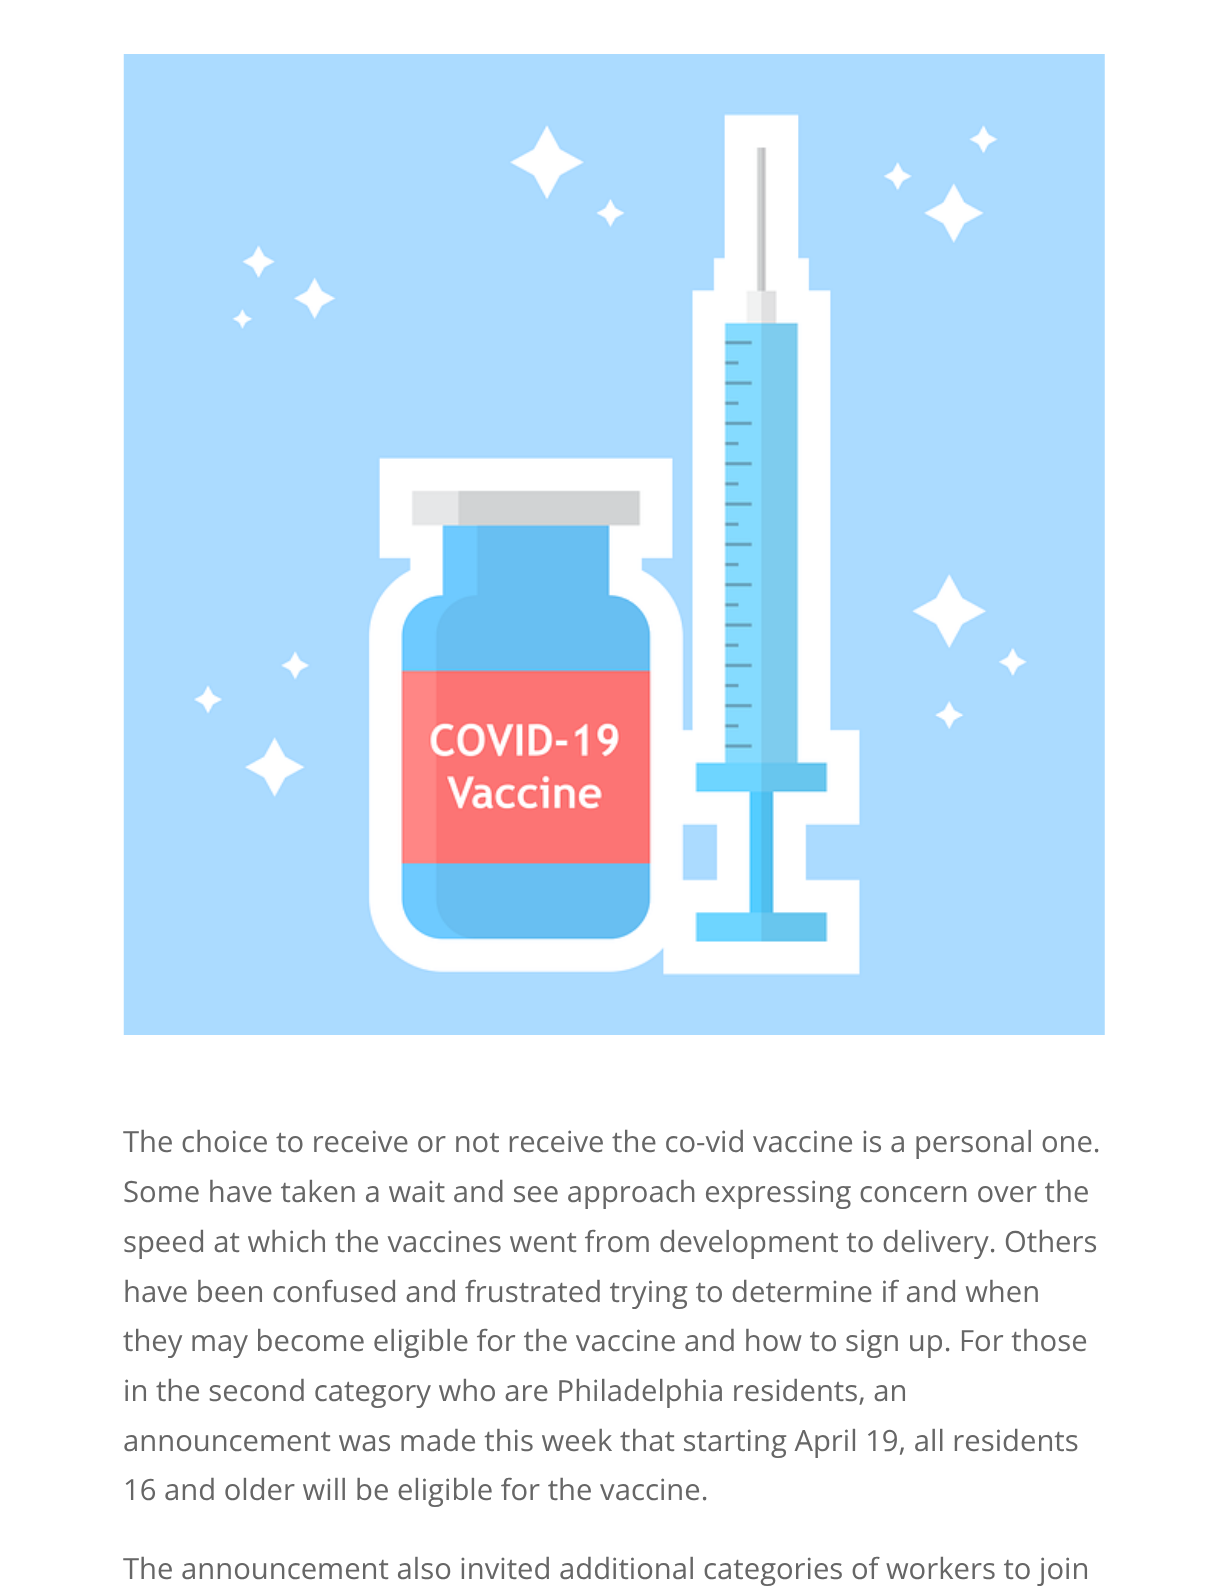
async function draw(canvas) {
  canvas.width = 1225
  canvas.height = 1587
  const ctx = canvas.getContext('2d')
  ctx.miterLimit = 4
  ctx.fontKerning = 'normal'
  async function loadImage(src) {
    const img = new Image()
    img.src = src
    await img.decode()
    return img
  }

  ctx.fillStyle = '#fff'
  ctx.fillRect(0, 0, 1225, 1587)
  ctx.drawImage(await loadImage('image0.png'), 123, 54, 982, 981)
  ctx.font = '29.25px Open Sans'
  ctx.fillStyle = '#666'
  ctx.fillText('The choice to receive or not receive the co-vid vaccine is a personal one.', 123, 1152)
  ctx.fillText('Some have taken a wait and see approach expressing concern over the', 123, 1202)
  ctx.fillText('speed at which the vaccines went from development to delivery. Others', 123, 1252)
  ctx.fillText('have been confused and frustrated trying to determine if and when', 123, 1302)
  ctx.fillText('they may become eligible for the vaccine and how to sign up. For those', 123, 1351)
  ctx.fillText('in the second category who are Philadelphia residents, an', 123, 1401)
  ctx.fillText('announcement was made this week that starting April 19, all residents', 123, 1451)
  ctx.fillText('16 and older will be eligible for the vaccine.', 123, 1500)
  ctx.fillText('The announcement also invited additional categories of workers to join', 123, 1579)
}

draw(document.querySelector('canvas'))
